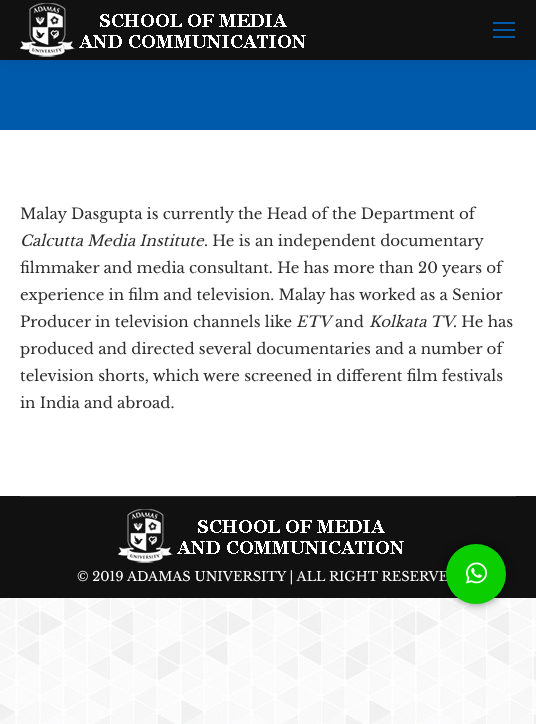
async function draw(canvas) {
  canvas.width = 536
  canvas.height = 724
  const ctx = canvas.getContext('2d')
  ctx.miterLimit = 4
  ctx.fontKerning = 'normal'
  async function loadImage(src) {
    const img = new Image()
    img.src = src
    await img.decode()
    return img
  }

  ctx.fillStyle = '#fff'
  ctx.fillRect(0, 0, 536, 724)
  ctx.drawImage(await loadImage('image0.png'), 0, 598, 536, 126)
  ctx.fillStyle = '#005aab'
  ctx.fillRect(0, 60, 536, 70)
  ctx.fillStyle = '#00000012'
  ctx.filter = 'blur(7.5px)'
  ctx.beginPath()
  ctx.rect(-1, -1, 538, 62)
  ctx.fill()
  ctx.filter = 'none'
  ctx.fillStyle = '#111'
  ctx.fillRect(0, 0, 536, 60)
  ctx.drawImage(await loadImage('image1.png'), 20, 3, 286, 54)
  ctx.fillStyle = '#005aab'
  ctx.fillRect(493, 29, 22, 2)
  ctx.fillRect(493, 22, 22, 2)
  ctx.fillRect(493, 36, 22, 2)
  ctx.font = '15px Libre Baskerville'
  ctx.fillStyle = '#2d2d2d'
  ctx.fillText('Malay Dasgupta is currently the Head of the Department of', 20, 219)
  ctx.font = 'italic 15px Libre Baskerville'
  ctx.fillText('Calcutta Media Institute', 20, 246)
  ctx.font = '15px Libre Baskerville'
  ctx.fillText('. He is an independent documentary', 204, 246)
  ctx.fillText('filmmaker and media consultant. He has more than 20 years of', 20, 273)
  ctx.fillText('experience in film and television. Malay has worked as a Senior', 20, 300)
  ctx.fillText('Producer in television channels like', 20, 327)
  ctx.font = 'italic 15px Libre Baskerville'
  ctx.fillText('ETV', 296, 327)
  ctx.font = '15px Libre Baskerville'
  ctx.fillText('and', 335, 327)
  ctx.font = 'italic 15px Libre Baskerville'
  ctx.fillText('Kolkata TV', 369, 327)
  ctx.font = '15px Libre Baskerville'
  ctx.fillText('. He has', 453, 327)
  ctx.fillText('produced and directed several documentaries and a number of', 20, 354)
  ctx.fillText('television shorts, which were screened in different film festivals', 20, 381)
  ctx.fillText('in India and abroad.', 20, 408)
  ctx.fillStyle = '#111'
  ctx.fillRect(0, 496, 536, 102)
  ctx.fillStyle = '#2e2e2e'
  ctx.fillRect(20, 496, 496, 1)
  ctx.drawImage(await loadImage('image1.png'), 118, 509, 286, 54)
  ctx.font = '13px Libre Baskerville'
  ctx.fillStyle = '#fff'
  ctx.fillText('© 2019 ADAMAS UNIVERSITY | ALL RIGHT RESERVE', 77, 581)
  ctx.fillStyle = '#00000080'
  ctx.filter = 'blur(4px)'
  ctx.beginPath()
  ctx.roundRect(446, 544, 60, 60, 30)
  ctx.fill()
  ctx.filter = 'none'
  ctx.fillStyle = '#0ace00'
  ctx.beginPath()
  ctx.arc(476, 574, 30, 0, 2 * Math.PI)
  ctx.fill()
  ctx.drawImage(await loadImage('image2.png'), 466, 562, 21, 22)
}

draw(document.querySelector('canvas'))
